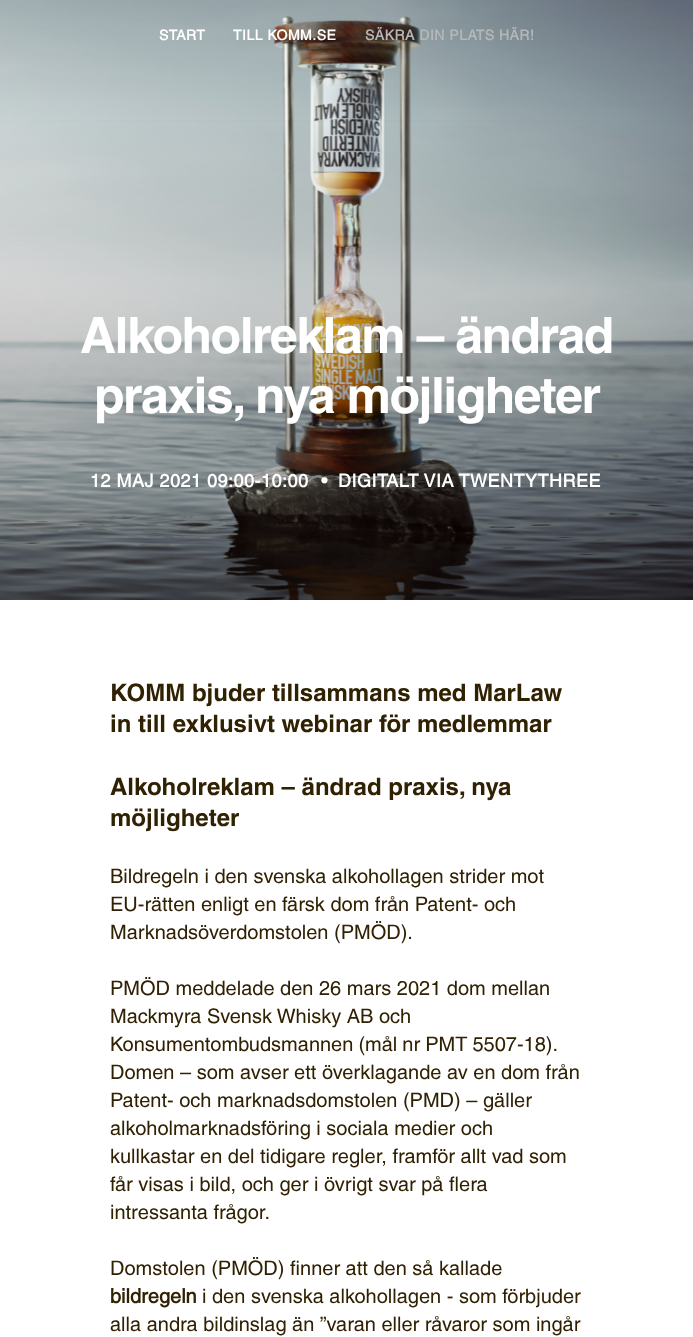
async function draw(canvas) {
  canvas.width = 693
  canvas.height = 1337
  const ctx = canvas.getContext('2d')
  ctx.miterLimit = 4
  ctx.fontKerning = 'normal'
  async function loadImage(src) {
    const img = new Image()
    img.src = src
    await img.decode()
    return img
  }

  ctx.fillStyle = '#fff'
  ctx.fillRect(0, 0, 693, 1337)
  ctx.drawImage(await loadImage('image0.png'), 0, 0, 693, 600)
  ctx.letterSpacing = '0.5px'
  ctx.font = 'bold 14px "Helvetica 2"'
  ctx.fillText('START', 159, 40)
  ctx.fillText('TILL KOMM.SE', 233, 40)
  ctx.fillStyle = '#b5b7b8'
  ctx.fillText('SÄKRA DIN PLATS HÄR!', 365, 40)
  ctx.letterSpacing = '-1.5px'
  ctx.font = 'bold 50px Helvetica'
  ctx.fillStyle = '#fff'
  ctx.fillText('Alkoholreklam – ändrad', 80, 353)
  ctx.fillText('praxis, nya möjligheter', 94, 413)
  ctx.letterSpacing = '0.5px'
  ctx.font = 'bold 18px "Helvetica 2"'
  ctx.fillText('12 MAJ 2021 09:00-10:00', 90, 487)
  ctx.fillText('•', 321, 487)
  ctx.fillText('DIGITALT VIA TWENTYTHREE', 338, 487)
  ctx.letterSpacing = '0px'
  ctx.font = 'bold 24px Helvetica'
  ctx.fillStyle = '#302103'
  ctx.fillText('KOMM bjuder tillsammans med MarLaw', 110, 701)
  ctx.fillText('in till exklusivt webinar för medlemmar', 110, 732)
  ctx.fillText('Alkoholreklam – ändrad praxis, nya', 110, 795)
  ctx.fillText('möjligheter', 110, 826)
  ctx.font = '20px Helvetica'
  ctx.fillText('Bildregeln i den svenska alkohollagen strider mot', 110, 883)
  ctx.fillText('EU-rätten enligt en färsk dom från Patent- och', 110, 911)
  ctx.fillText('Marknadsöverdomstolen (PMÖD).', 110, 939)
  ctx.fillText('PMÖD meddelade den 26 mars 2021 dom mellan', 110, 995)
  ctx.fillText('Mackmyra Svensk Whisky AB och', 110, 1023)
  ctx.wordSpacing = '-0.5px'
  ctx.fillText('Konsumentombudsmannen (mål nr PMT 5507-18).', 110, 1051)
  ctx.wordSpacing = '0px'
  ctx.fillText('Domen – som avser ett överklagande av en dom från', 110, 1079)
  ctx.fillText('Patent- och marknadsdomstolen (PMD) – gäller', 110, 1107)
  ctx.fillText('alkoholmarknadsföring i sociala medier och', 110, 1135)
  ctx.fillText('kullkastar en del tidigare regler, framför allt vad som', 110, 1163)
  ctx.fillText('får visas i bild, och ger i övrigt svar på flera', 110, 1191)
  ctx.fillText('intressanta frågor.', 110, 1219)
  ctx.fillText('Domstolen (PMÖD) finner att den så kallade', 110, 1275)
  ctx.font = 'bold 20px "Helvetica 2"'
  ctx.fillText('bildregeln', 110, 1303)
  ctx.font = '20px Helvetica'
  ctx.fillText('i den svenska alkohollagen - som förbjuder', 202, 1303)
  ctx.fillText('alla andra bildinslag än ”varan eller råvaror som ingår', 110, 1331)
}

draw(document.querySelector('canvas'))
